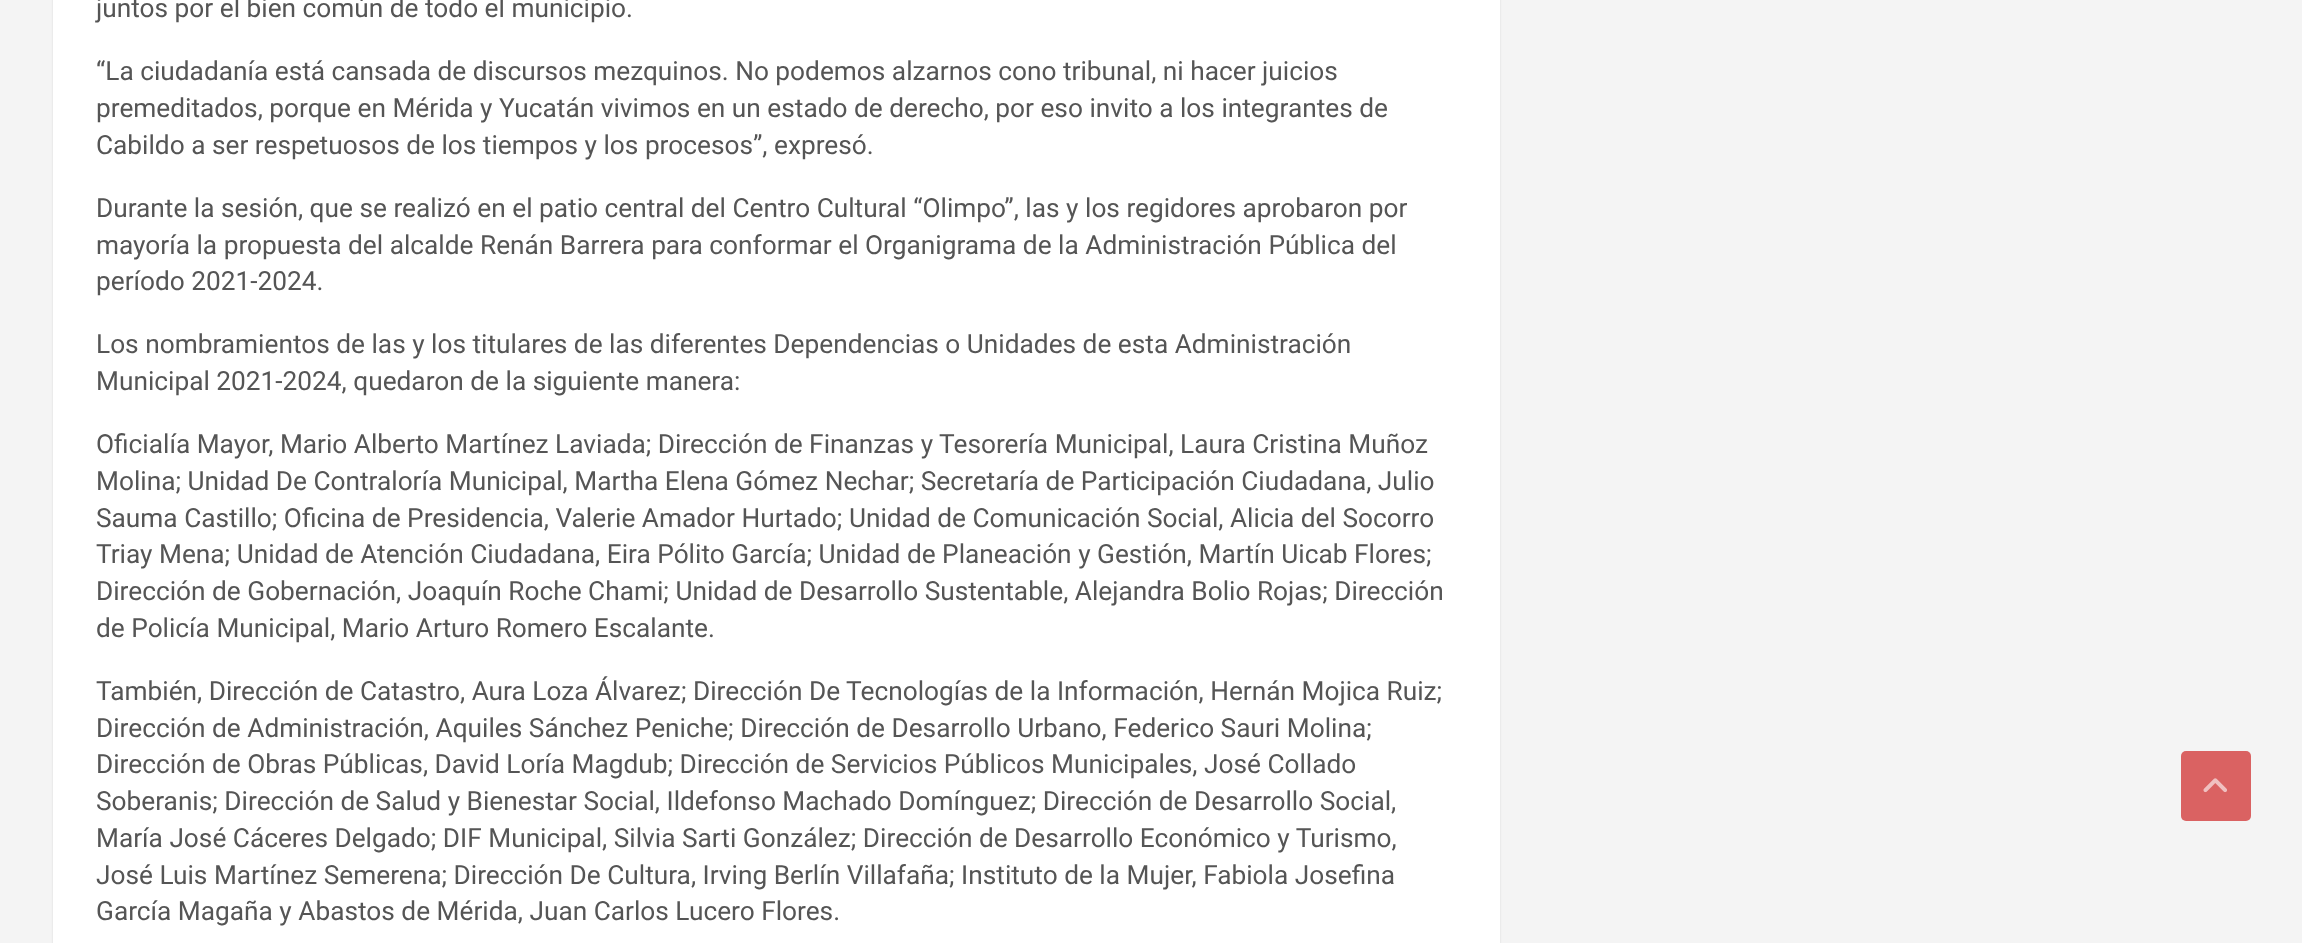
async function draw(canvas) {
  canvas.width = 2302
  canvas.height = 943
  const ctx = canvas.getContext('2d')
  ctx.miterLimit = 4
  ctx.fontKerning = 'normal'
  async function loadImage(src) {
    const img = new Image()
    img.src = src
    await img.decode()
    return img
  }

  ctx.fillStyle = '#f4f4f4'
  ctx.fillRect(0, 0, 2302, 943)
  ctx.fillStyle = '#0000001a'
  ctx.filter = 'blur(1px)'
  ctx.beginPath()
  ctx.rect(53, -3, 1447, 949)
  ctx.fill()
  ctx.filter = 'none'
  ctx.fillStyle = '#fff'
  ctx.fillRect(53, 0, 1447, 943)
  ctx.font = '26.25px Roboto'
  ctx.fillStyle = '#555'
  ctx.fillText('juntos por el bien común de todo el municipio.', 96, 17)
  ctx.fillText('“La ciudadanía está cansada de discursos mezquinos. No podemos alzarnos cono tribunal, ni hacer juicios', 96, 80)
  ctx.fillText('premeditados, porque en Mérida y Yucatán vivimos en un estado de derecho, por eso invito a los integrantes de', 96, 117)
  ctx.fillText('Cabildo a ser respetuosos de los tiempos y los procesos”, expresó.', 96, 154)
  ctx.fillText('Durante la sesión, que se realizó en el patio central del Centro Cultural “Olimpo”, las y los regidores aprobaron por', 96, 217)
  ctx.fillText('mayoría la propuesta del alcalde Renán Barrera para conformar el Organigrama de la Administración Pública del', 96, 254)
  ctx.fillText('período 2021-2024.', 96, 290)
  ctx.fillText('Los nombramientos de las y los titulares de las diferentes Dependencias o Unidades de esta Administración', 96, 353)
  ctx.fillText('Municipal 2021-2024, quedaron de la siguiente manera:', 96, 390)
  ctx.fillText('Oficialía Mayor, Mario Alberto Martínez Laviada; Dirección de Finanzas y Tesorería Municipal, Laura Cristina Muñoz', 96, 453)
  ctx.fillText('Molina; Unidad De Contraloría Municipal, Martha Elena Gómez Nechar; Secretaría de Participación Ciudadana, Julio', 96, 490)
  ctx.fillText('Sauma Castillo; Oficina de Presidencia, Valerie Amador Hurtado; Unidad de Comunicación Social, Alicia del Socorro', 96, 527)
  ctx.fillText('Triay Mena; Unidad de Atención Ciudadana, Eira Pólito García; Unidad de Planeación y Gestión, Martín Uicab Flores;', 96, 563)
  ctx.fillText('Dirección de Gobernación, Joaquín Roche Chami; Unidad de Desarrollo Sustentable, Alejandra Bolio Rojas; Dirección', 96, 600)
  ctx.fillText('de Policía Municipal, Mario Arturo Romero Escalante.', 96, 637)
  ctx.fillText('También, Dirección de Catastro, Aura Loza Álvarez; Dirección De Tecnologías de la Información, Hernán Mojica Ruiz;', 96, 700)
  ctx.fillText('Dirección de Administración, Aquiles Sánchez Peniche; Dirección de Desarrollo Urbano, Federico Sauri Molina;', 96, 737)
  ctx.fillText('Dirección de Obras Públicas, David Loría Magdub; Dirección de Servicios Públicos Municipales, José Collado', 96, 773)
  ctx.fillText('Soberanis; Dirección de Salud y Bienestar Social, Ildefonso Machado Domínguez; Dirección de Desarrollo Social,', 96, 810)
  ctx.fillText('María José Cáceres Delgado; DIF Municipal, Silvia Sarti González; Dirección de Desarrollo Económico y Turismo,', 96, 847)
  ctx.fillText('José Luis Martínez Semerena; Dirección De Cultura, Irving Berlín Villafaña; Instituto de la Mujer, Fabiola Josefina', 96, 884)
  ctx.fillText('García Magaña y Abastos de Mérida, Juan Carlos Lucero Flores.', 96, 920)
  ctx.fillStyle = '#da6262'
  ctx.beginPath()
  ctx.roundRect(2181, 751, 70, 70, 5)
  ctx.fill()
  ctx.drawImage(await loadImage('image0.png'), 2203, 778, 24, 15)
}

draw(document.querySelector('canvas'))
